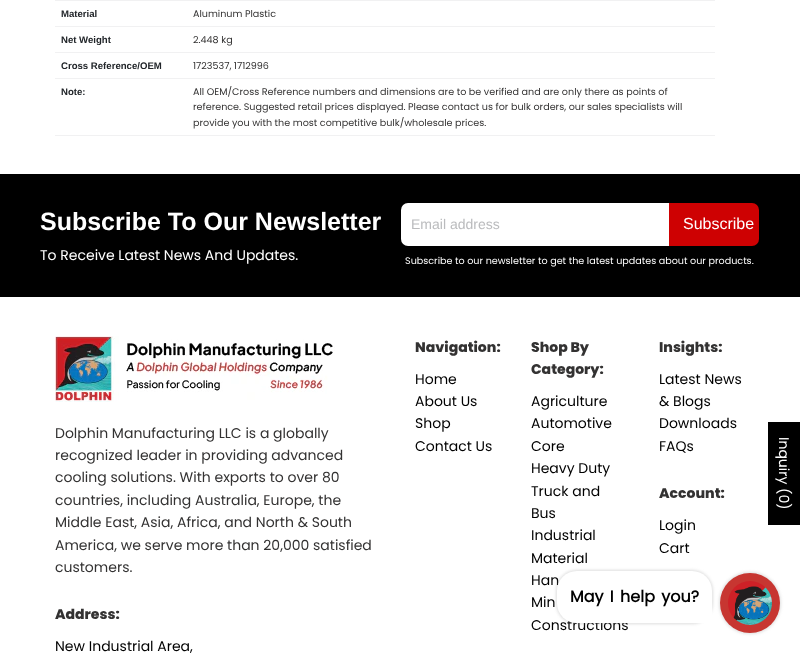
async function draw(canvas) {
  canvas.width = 800
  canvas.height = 653
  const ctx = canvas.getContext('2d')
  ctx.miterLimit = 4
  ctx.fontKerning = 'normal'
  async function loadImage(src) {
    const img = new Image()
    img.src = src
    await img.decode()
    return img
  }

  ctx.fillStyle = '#fff'
  ctx.fillRect(0, 0, 800, 653)
  ctx.fillStyle = '#f1f1f2'
  ctx.fillRect(55, 0, 660, 1)
  ctx.font = 'bold 9.6px Liberation Sans'
  ctx.fillStyle = '#212529'
  ctx.fillText('Material', 61, 17)
  ctx.font = '9.6px Poppins'
  ctx.fillStyle = '#333232'
  ctx.fillText('Aluminum Plastic', 193, 17)
  ctx.fillStyle = '#f1f1f2'
  ctx.fillRect(55, 26, 660, 1)
  ctx.font = 'bold 9.6px Liberation Sans'
  ctx.fillStyle = '#212529'
  ctx.fillText('Net Weight', 61, 43)
  ctx.font = '9.6px Poppins'
  ctx.fillStyle = '#333232'
  ctx.fillText('2.448 kg', 193, 43)
  ctx.fillStyle = '#f1f1f2'
  ctx.fillRect(55, 52, 660, 1)
  ctx.font = 'bold 9.6px Liberation Sans'
  ctx.fillStyle = '#212529'
  ctx.fillText('Cross Reference/OEM', 61, 69)
  ctx.font = '9.6px Poppins'
  ctx.fillStyle = '#333232'
  ctx.fillText('1723537, 1712996', 193, 69)
  ctx.fillStyle = '#f1f1f2'
  ctx.fillRect(55, 78, 660, 1)
  ctx.font = 'bold 9.6px Liberation Sans'
  ctx.fillStyle = '#212529'
  ctx.fillText('Note:', 61, 95)
  ctx.fillStyle = '#f1f1f2'
  ctx.fillRect(55, 135, 660, 1)
  ctx.font = '9.6px Poppins'
  ctx.fillStyle = '#333232'
  ctx.fillText('All OEM/Cross Reference numbers and dimensions are to be verified and are only there as points of', 193, 95)
  ctx.fillText('reference. Suggested retail prices displayed. Please contact us for bulk orders, our sales specialists will', 193, 110)
  ctx.fillText('provide you with the most competitive bulk/wholesale prices.', 193, 126)
  ctx.fillStyle = '#000'
  ctx.fillRect(0, 174, 800, 123)
  ctx.font = 'bold 25px Liberation Sans'
  ctx.fillStyle = '#fff'
  ctx.fillText('Subscribe To Our Newsletter', 40, 230)
  ctx.font = '14px Poppins'
  ctx.fillText('To Receive Latest News And Updates.', 40, 260)
  ctx.beginPath()
  ctx.roundRect(401, 203, 270, 43, [7, 2, 2, 7])
  ctx.fill()
  ctx.font = '14px Liberation Sans'
  ctx.fillStyle = '#babbbd'
  ctx.fillText('Email address', 411, 229)
  ctx.fillStyle = '#ce0102'
  ctx.beginPath()
  ctx.roundRect(669, 203, 90, 43, [0, 7, 7, 0])
  ctx.fill()
  ctx.font = '16px Liberation Sans'
  ctx.fillStyle = '#fff'
  ctx.fillText('Subscribe', 683, 229)
  ctx.font = '9.6px Poppins'
  ctx.fillText('Subscribe to our newsletter to get the latest updates about our products.', 405, 264)
  ctx.drawImage(await loadImage('image0.png'), 55, 336, 280, 66)
  ctx.font = '14px Poppins'
  ctx.fillStyle = '#333232'
  ctx.fillText('Dolphin Manufacturing LLC is a globally', 55, 438)
  ctx.fillText('recognized leader in providing advanced', 55, 460)
  ctx.fillText('cooling solutions. With exports to over 80', 55, 482)
  ctx.fillText('countries, including Australia, Europe, the', 55, 505)
  ctx.fillText('Middle East, Asia, Africa, and North & South', 55, 527)
  ctx.fillText('America, we serve more than 20,000 satisfied', 55, 550)
  ctx.fillText('customers.', 55, 572)
  ctx.font = '800 14px Poppins'
  ctx.fillText('Address:', 55, 619)
  ctx.font = '14px Poppins'
  ctx.fillStyle = '#000'
  ctx.fillText('New Industrial Area,', 55, 651)
  ctx.font = '800 14px Poppins'
  ctx.fillStyle = '#333232'
  ctx.fillText('Navigation:', 415, 352)
  ctx.font = '14px Poppins'
  ctx.fillStyle = '#000'
  ctx.fillText('Home', 415, 384)
  ctx.fillText('About Us', 415, 406)
  ctx.fillText('Shop', 415, 428)
  ctx.fillText('Contact Us', 415, 451)
  ctx.font = '800 14px Poppins'
  ctx.fillStyle = '#333232'
  ctx.fillText('Shop By', 531, 352)
  ctx.fillText('Category:', 531, 374)
  ctx.font = '14px Poppins'
  ctx.fillStyle = '#000'
  ctx.fillText('Agriculture', 531, 406)
  ctx.fillText('Automotive', 531, 428)
  ctx.fillText('Core', 531, 451)
  ctx.fillText('Heavy Duty', 531, 473)
  ctx.fillText('Truck and', 531, 496)
  ctx.fillText('Bus', 531, 518)
  ctx.fillText('Industrial', 531, 540)
  ctx.fillText('Material', 531, 563)
  ctx.fillText('Han', 531, 585)
  ctx.fillText('Min', 531, 607)
  ctx.fillText('Constructions', 531, 630)
  ctx.font = '800 14px Poppins'
  ctx.fillStyle = '#333232'
  ctx.fillText('Insights:', 659, 352)
  ctx.font = '14px Poppins'
  ctx.fillStyle = '#000'
  ctx.fillText('Latest News', 659, 384)
  ctx.fillText('& Blogs', 659, 406)
  ctx.fillText('Downloads', 659, 428)
  ctx.fillText('FAQs', 659, 451)
  ctx.font = '800 14px Poppins'
  ctx.fillStyle = '#333232'
  ctx.fillText('Account:', 659, 498)
  ctx.font = '14px Poppins'
  ctx.fillStyle = '#000'
  ctx.fillText('Login', 659, 530)
  ctx.fillText('Cart', 659, 553)
  ctx.fillRect(768, 422, 32, 103)
  ctx.fillStyle = '#fff'
  ctx.save()
  ctx.translate(779, 437)
  ctx.rotate(90 * Math.PI / 180)
  ctx.fillText('Inquiry (0)', 0, 0)
  ctx.restore()
  ctx.fillStyle = '#9292924d'
  ctx.filter = 'blur(1.5px)'
  ctx.beginPath()
  ctx.roundRect(556, 570, 157, 54, 21)
  ctx.fill()
  ctx.filter = 'none'
  ctx.fillStyle = '#fff'
  ctx.beginPath()
  ctx.roundRect(557, 571, 155, 52, [20, 20, 3, 20])
  ctx.fill()
  ctx.wordSpacing = '2px'
  ctx.font = 'bold 16px Poppins'
  ctx.fillStyle = '#000'
  ctx.fillText('May I help you?', 570, 602)
  ctx.fillStyle = '#9292924d'
  ctx.filter = 'blur(1.5px)'
  ctx.beginPath()
  ctx.roundRect(719, 572, 62, 62, 31)
  ctx.fill()
  ctx.filter = 'none'
  ctx.fillStyle = '#c73631'
  ctx.beginPath()
  ctx.arc(750, 603, 30, 0, 2 * Math.PI)
  ctx.fill()
  ctx.drawImage(await loadImage('image1.png'), 728, 581, 44, 44)
}

draw(document.querySelector('canvas'))
